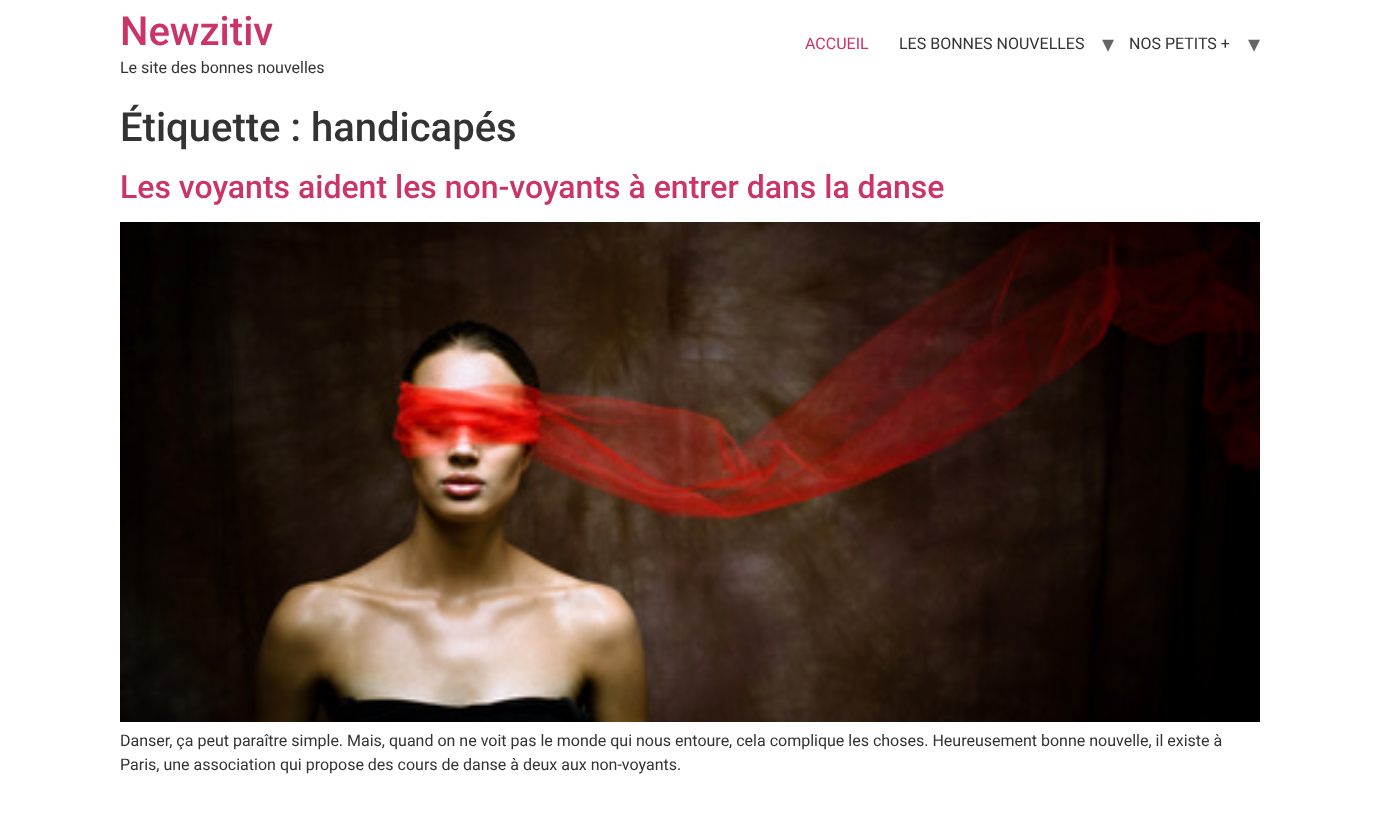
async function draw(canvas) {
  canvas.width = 1380
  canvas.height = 816
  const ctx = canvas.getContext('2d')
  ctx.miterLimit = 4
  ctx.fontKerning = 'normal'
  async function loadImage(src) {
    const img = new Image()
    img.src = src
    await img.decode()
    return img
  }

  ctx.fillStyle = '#fff'
  ctx.fillRect(0, 0, 1380, 816)
  ctx.font = '500 40px Roboto'
  ctx.fillStyle = '#c36'
  ctx.fillText('Newzitiv', 120, 45)
  ctx.font = '16px Roboto'
  ctx.fillStyle = '#333'
  ctx.fillText('Le site des bonnes nouvelles', 120, 73)
  ctx.fillStyle = '#c36'
  ctx.fillText('ACCUEIL', 805, 49)
  ctx.fillStyle = '#333'
  ctx.fillText('LES BONNES NOUVELLES', 899, 49)
  ctx.font = '24px DejaVu Sans'
  ctx.fillStyle = '#666'
  ctx.fillText('▾', 1102, 52)
  ctx.font = '16px Roboto'
  ctx.fillStyle = '#333'
  ctx.fillText('NOS PETITS +', 1129, 49)
  ctx.font = '24px DejaVu Sans'
  ctx.fillStyle = '#666'
  ctx.fillText('▾', 1248, 52)
  ctx.font = '500 40px Roboto'
  ctx.fillStyle = '#333'
  ctx.fillText('Étiquette : handicapés', 120, 141)
  ctx.font = '500 32px Roboto'
  ctx.fillStyle = '#c36'
  ctx.fillText('Les voyants aident les non-voyants à entrer dans la danse', 120, 198)
  ctx.drawImage(await loadImage('image0.png'), 120, 222, 1140, 500)
  ctx.font = '16px Roboto'
  ctx.fillStyle = '#333'
  ctx.fillText('Danser, ça peut paraître simple. Mais, quand on ne voit pas le monde qui nous entoure, cela complique les choses. Heureusement bonne nouvelle, il existe à', 120, 746)
  ctx.fillText('Paris, une association qui propose des cours de danse à deux aux non-voyants.', 120, 770)
}

draw(document.querySelector('canvas'))
